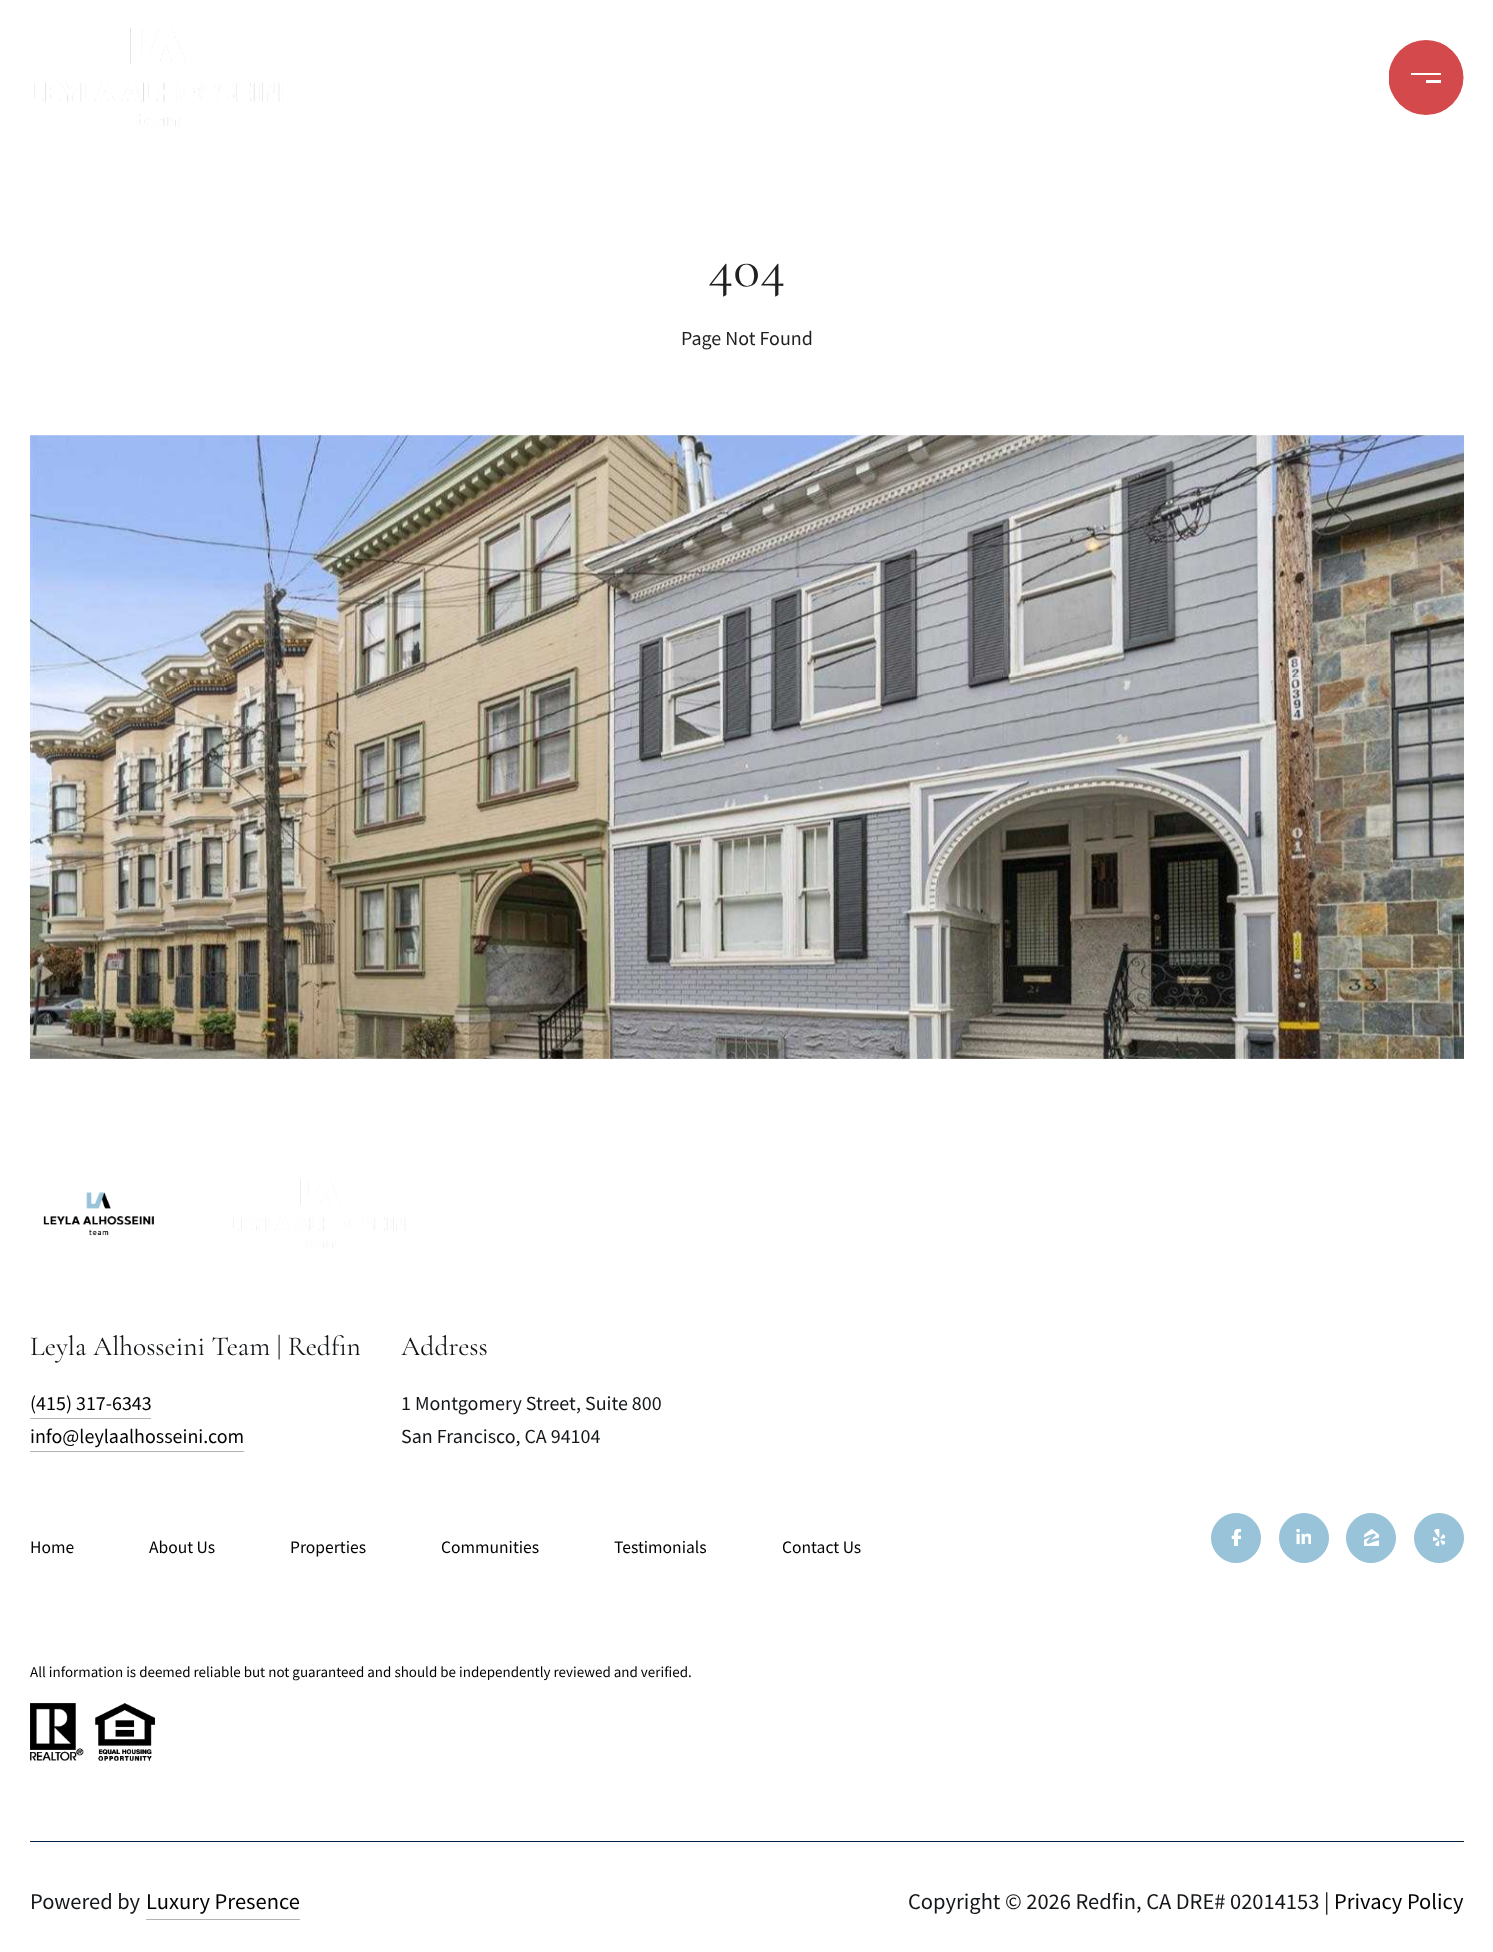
async function draw(canvas) {
  canvas.width = 1493
  canvas.height = 1952
  const ctx = canvas.getContext('2d')
  ctx.miterLimit = 4
  ctx.fontKerning = 'normal'
  async function loadImage(src) {
    const img = new Image()
    img.src = src
    await img.decode()
    return img
  }

  ctx.fillStyle = '#fff'
  ctx.fillRect(0, 0, 1493, 1952)
  ctx.drawImage(await loadImage('image0.png'), 34, 28, 249, 99)
  ctx.save()
  ctx.beginPath()
  ctx.rect(1389, 40, 75, 75)
  ctx.clip()
  ctx.fillStyle = '#d3494c'
  ctx.beginPath()
  ctx.arc(1426, 77.5, 37.5, 0, 2 * Math.PI)
  ctx.fill()
  ctx.restore()
  ctx.fillRect(1411, 73, 30, 2)
  ctx.fillRect(1426, 80, 15, 3)
  ctx.font = '56px Cormorant Garamond'
  ctx.fillStyle = '#211f1f'
  ctx.fillText('404', 708, 286)
  ctx.font = '20px Source Sans Pro'
  ctx.fillText('Page Not Found', 681, 345)
  ctx.drawImage(await loadImage('image1.png'), 30, 435, 1434, 624)
  ctx.drawImage(await loadImage('image2.png'), 43, 1192, 111, 44)
  ctx.drawImage(await loadImage('image3.png'), 233, 1179, 173, 69)
  ctx.font = '27.5px Cormorant Garamond'
  ctx.fillStyle = '#14171a'
  ctx.fillText('Leyla Alhosseini Team | Redfin', 30, 1355)
  ctx.font = '20px Source Sans Pro'
  ctx.fillStyle = '#000'
  ctx.fillText('(415) 317-6343', 30, 1410)
  ctx.fillStyle = '#b3b3b3'
  ctx.fillRect(30, 1418, 121, 1)
  ctx.fillStyle = '#000'
  ctx.fillText('info@leylaalhosseini.com', 30, 1443)
  ctx.fillStyle = '#b3b3b3'
  ctx.fillRect(30, 1451, 214, 1)
  ctx.font = '27.5px Cormorant Garamond'
  ctx.fillStyle = '#14171a'
  ctx.fillText('Address', 401, 1355)
  ctx.font = '20px Source Sans Pro'
  ctx.fillText('1 Montgomery Street, Suite 800', 401, 1410)
  ctx.fillText('San Francisco, CA 94104', 401, 1443)
  ctx.font = '17.5px Source Sans Pro'
  ctx.fillStyle = '#000'
  ctx.fillText('Home', 30, 1553)
  ctx.fillText('About Us', 149, 1553)
  ctx.fillText('Properties', 290, 1553)
  ctx.fillText('Communities', 441, 1553)
  ctx.fillText('Testimonials', 614, 1553)
  ctx.fillText('Contact Us', 782, 1553)
  ctx.fillStyle = '#99c3d9'
  ctx.beginPath()
  ctx.arc(1236, 1538, 24.5, 0, 2 * Math.PI)
  ctx.fill()
  ctx.strokeStyle = '#99c3d9'
  ctx.stroke()
  ctx.drawImage(await loadImage('image4.png'), 1231, 1529, 10, 17)
  ctx.beginPath()
  ctx.arc(1304, 1538, 24.5, 0, 2 * Math.PI)
  ctx.fill()
  ctx.stroke()
  ctx.drawImage(await loadImage('image5.png'), 1296, 1529, 15, 16)
  ctx.beginPath()
  ctx.arc(1371, 1538, 24.5, 0, 2 * Math.PI)
  ctx.fill()
  ctx.stroke()
  ctx.drawImage(await loadImage('image6.png'), 1364, 1529, 15, 17)
  ctx.beginPath()
  ctx.arc(1439, 1538, 24.5, 0, 2 * Math.PI)
  ctx.fill()
  ctx.stroke()
  ctx.drawImage(await loadImage('image7.png'), 1433, 1529, 12, 17)
  ctx.font = '15px Source Sans Pro'
  ctx.fillStyle = '#000'
  ctx.fillText('All information is deemed reliable but not guaranteed and should be independently reviewed and verified.', 30, 1677)
  ctx.drawImage(await loadImage('image8.png'), 30, 1703, 125, 58)
  ctx.fillStyle = '#001e41'
  ctx.fillRect(30, 1841, 1434, 1)
  ctx.font = '22.5px Source Sans Pro'
  ctx.fillStyle = '#14171a'
  ctx.fillText('Powered by', 30, 1909)
  ctx.fillStyle = '#000'
  ctx.fillText('Luxury Presence', 146, 1909)
  ctx.fillStyle = '#b3b3b3'
  ctx.fillRect(146, 1919, 154, 1)
  ctx.fillStyle = '#14171a'
  ctx.fillText('Copyright © 2026 Redfin, CA DRE# 02014153 |', 908, 1909)
  ctx.fillStyle = '#000'
  ctx.fillText('Privacy Policy', 1334, 1909)
}

draw(document.querySelector('canvas'))
